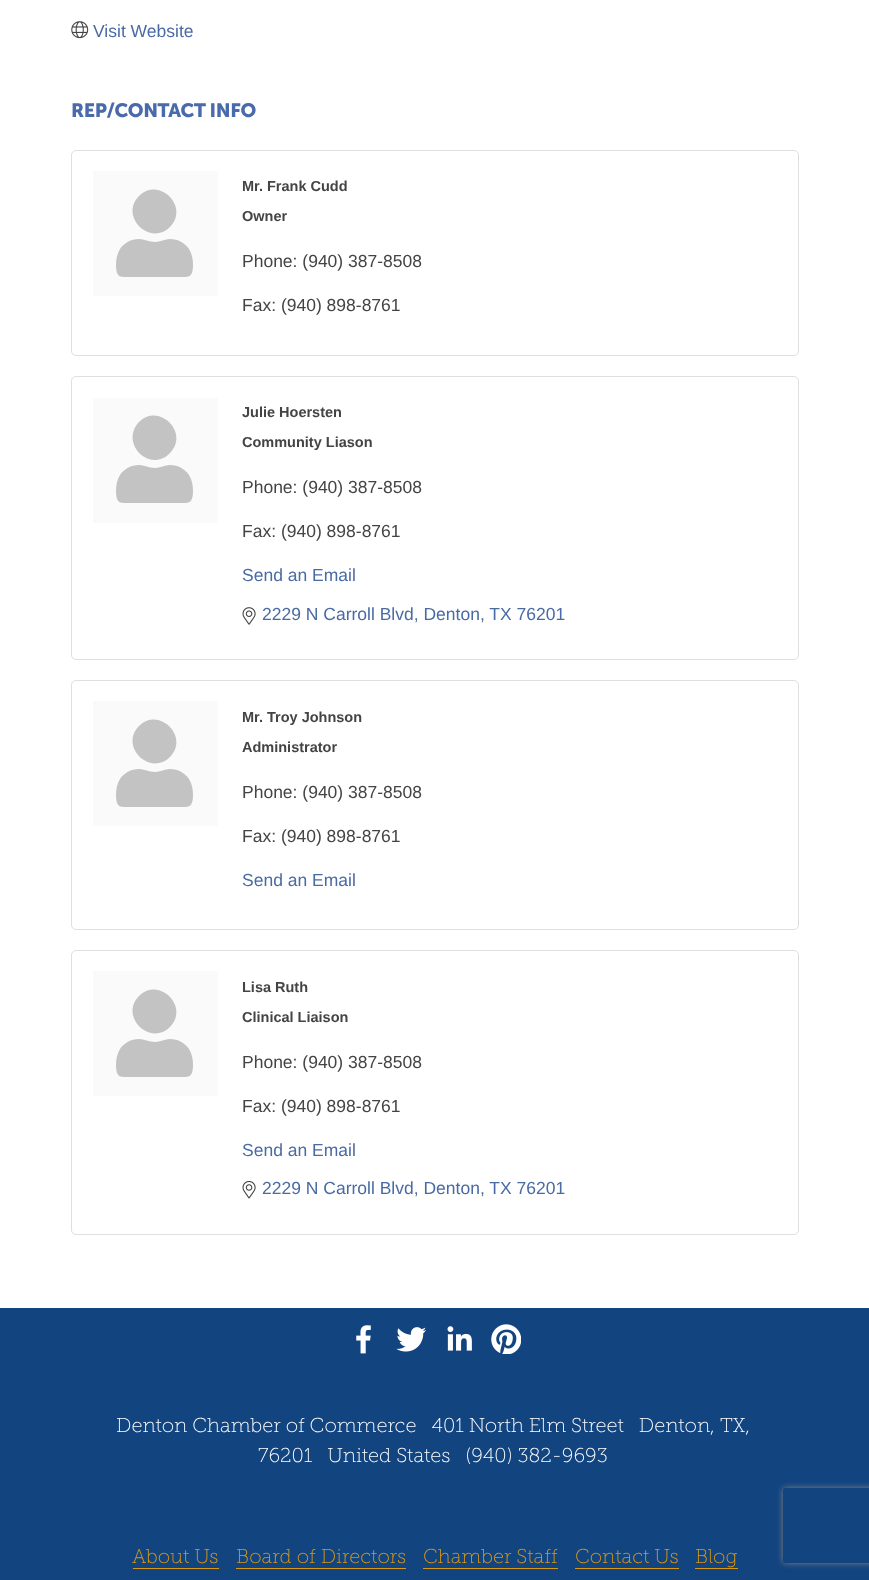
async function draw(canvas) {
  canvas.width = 869
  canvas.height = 1580
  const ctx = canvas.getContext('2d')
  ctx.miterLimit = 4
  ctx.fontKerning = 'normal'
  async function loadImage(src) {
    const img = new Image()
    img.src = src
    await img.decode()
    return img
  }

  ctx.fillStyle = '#fff'
  ctx.fillRect(0, 0, 869, 1580)
  ctx.drawImage(await loadImage('image0.png'), 71, 21, 18, 18)
  ctx.font = '17.5px Liberation Sans'
  ctx.fillStyle = '#496aa3'
  ctx.fillText('Visit Website', 93, 37)
  ctx.letterSpacing = '-0.4px'
  ctx.font = 'bold 19.25px Museo Sans'
  ctx.fillStyle = '#496aab'
  ctx.fillText('REP/CONTACT INFO', 71, 117)
  ctx.beginPath()
  ctx.roundRect(71.5, 150.5, 727, 205, 4.5)
  ctx.strokeStyle = '#dfdfdf'
  ctx.stroke()
  ctx.fillStyle = '#fafafa'
  ctx.fillRect(93, 171, 125, 125)
  ctx.fillStyle = '#c3c3c3'
  ctx.beginPath()
  ctx.moveTo(170, 227)
  ctx.bezierCurveTo(150, 247, 119, 216, 139, 196)
  ctx.bezierCurveTo(159, 176, 190, 207, 170, 227)
  ctx.closePath()
  ctx.moveTo(170, 239)
  ctx.bezierCurveTo(178, 239, 185, 243, 189, 249)
  ctx.bezierCurveTo(192, 254, 193, 259, 193, 265)
  ctx.bezierCurveTo(193, 279, 188, 277, 175, 277)
  ctx.lineTo(134, 277)
  ctx.bezierCurveTo(121, 277, 116, 279, 116, 265)
  ctx.bezierCurveTo(116, 259, 117, 254, 120, 249)
  ctx.bezierCurveTo(124, 243, 131, 239, 139, 239)
  ctx.bezierCurveTo(144, 239, 149, 242, 155, 242)
  ctx.bezierCurveTo(160, 242, 165, 239, 170, 239)
  ctx.closePath()
  ctx.fill()
  ctx.letterSpacing = '0px'
  ctx.font = 'bold 14.5px Liberation Sans'
  ctx.fillStyle = '#444'
  ctx.fillText('Mr. Frank Cudd', 242, 191)
  ctx.fillText('Owner', 242, 221)
  ctx.font = '17.5px Liberation Sans'
  ctx.fillText('Phone: (940) 387-8508', 242, 267)
  ctx.fillText('Fax: (940) 898-8761', 242, 311)
  ctx.beginPath()
  ctx.roundRect(71.5, 376.5, 727, 283, 4.5)
  ctx.stroke()
  ctx.fillStyle = '#fafafa'
  ctx.fillRect(93, 398, 125, 125)
  ctx.fillStyle = '#c3c3c3'
  ctx.beginPath()
  ctx.moveTo(170, 453)
  ctx.bezierCurveTo(150, 474, 119, 443, 139, 422)
  ctx.bezierCurveTo(159, 402, 190, 433, 170, 453)
  ctx.closePath()
  ctx.moveTo(170, 465)
  ctx.bezierCurveTo(178, 465, 185, 469, 189, 475)
  ctx.bezierCurveTo(192, 480, 193, 485, 193, 491)
  ctx.bezierCurveTo(193, 505, 188, 503, 175, 503)
  ctx.lineTo(134, 503)
  ctx.bezierCurveTo(121, 503, 116, 505, 116, 491)
  ctx.bezierCurveTo(116, 485, 117, 480, 120, 475)
  ctx.bezierCurveTo(124, 469, 131, 465, 139, 465)
  ctx.bezierCurveTo(144, 465, 149, 468, 155, 468)
  ctx.bezierCurveTo(160, 468, 165, 465, 170, 465)
  ctx.closePath()
  ctx.fill()
  ctx.font = 'bold 14.5px Liberation Sans'
  ctx.fillStyle = '#444'
  ctx.fillText('Julie Hoersten', 242, 417)
  ctx.fillText('Community Liason', 242, 447)
  ctx.font = '17.5px Liberation Sans'
  ctx.fillText('Phone: (940) 387-8508', 242, 493)
  ctx.fillText('Fax: (940) 898-8761', 242, 537)
  ctx.fillStyle = '#496aa3'
  ctx.fillText('Send an Email', 242, 581)
  ctx.drawImage(await loadImage('image1.png'), 242, 607, 14, 18)
  ctx.fillText('2229 N Carroll Blvd, Denton, TX 76201', 262, 620)
  ctx.beginPath()
  ctx.roundRect(71.5, 680.5, 727, 249, 4.5)
  ctx.stroke()
  ctx.fillStyle = '#fafafa'
  ctx.fillRect(93, 701, 125, 125)
  ctx.fillStyle = '#c3c3c3'
  ctx.beginPath()
  ctx.moveTo(170, 757)
  ctx.bezierCurveTo(150, 777, 119, 746, 139, 726)
  ctx.bezierCurveTo(159, 706, 190, 737, 170, 757)
  ctx.closePath()
  ctx.moveTo(170, 769)
  ctx.bezierCurveTo(178, 769, 185, 773, 189, 779)
  ctx.bezierCurveTo(192, 784, 193, 789, 193, 795)
  ctx.bezierCurveTo(193, 809, 188, 807, 175, 807)
  ctx.lineTo(134, 807)
  ctx.bezierCurveTo(121, 807, 116, 809, 116, 795)
  ctx.bezierCurveTo(116, 789, 117, 784, 120, 779)
  ctx.bezierCurveTo(124, 773, 131, 769, 139, 769)
  ctx.bezierCurveTo(144, 769, 149, 772, 155, 772)
  ctx.bezierCurveTo(160, 772, 165, 769, 170, 769)
  ctx.closePath()
  ctx.fill()
  ctx.font = 'bold 14.5px Liberation Sans'
  ctx.fillStyle = '#444'
  ctx.fillText('Mr. Troy Johnson', 242, 722)
  ctx.fillText('Administrator', 242, 752)
  ctx.font = '17.5px Liberation Sans'
  ctx.fillText('Phone: (940) 387-8508', 242, 798)
  ctx.fillText('Fax: (940) 898-8761', 242, 842)
  ctx.fillStyle = '#496aa3'
  ctx.fillText('Send an Email', 242, 886)
  ctx.beginPath()
  ctx.roundRect(71.5, 950.5, 727, 284, 4.5)
  ctx.stroke()
  ctx.fillStyle = '#fafafa'
  ctx.fillRect(93, 971, 125, 125)
  ctx.fillStyle = '#c3c3c3'
  ctx.beginPath()
  ctx.moveTo(170, 1027)
  ctx.bezierCurveTo(150, 1047, 119, 1016, 139, 996)
  ctx.bezierCurveTo(159, 976, 190, 1007, 170, 1027)
  ctx.closePath()
  ctx.moveTo(170, 1039)
  ctx.bezierCurveTo(178, 1039, 185, 1043, 189, 1049)
  ctx.bezierCurveTo(192, 1054, 193, 1059, 193, 1065)
  ctx.bezierCurveTo(193, 1079, 188, 1077, 175, 1077)
  ctx.lineTo(134, 1077)
  ctx.bezierCurveTo(121, 1077, 116, 1079, 116, 1065)
  ctx.bezierCurveTo(116, 1059, 117, 1054, 120, 1049)
  ctx.bezierCurveTo(124, 1043, 131, 1039, 139, 1039)
  ctx.bezierCurveTo(144, 1039, 149, 1042, 155, 1042)
  ctx.bezierCurveTo(160, 1042, 165, 1039, 170, 1039)
  ctx.closePath()
  ctx.fill()
  ctx.font = 'bold 14.5px Liberation Sans'
  ctx.fillStyle = '#444'
  ctx.fillText('Lisa Ruth', 242, 992)
  ctx.fillText('Clinical Liaison', 242, 1022)
  ctx.font = '17.5px Liberation Sans'
  ctx.fillText('Phone: (940) 387-8508', 242, 1068)
  ctx.fillText('Fax: (940) 898-8761', 242, 1112)
  ctx.fillStyle = '#496aa3'
  ctx.fillText('Send an Email', 242, 1156)
  ctx.drawImage(await loadImage('image2.png'), 242, 1180, 14, 19)
  ctx.fillText('2229 N Carroll Blvd, Denton, TX 76201', 262, 1194)
  ctx.fillStyle = '#124480'
  ctx.fillRect(0, 1308, 869, 272)
  ctx.drawImage(await loadImage('image3.png'), 356, 1325, 15, 29)
  ctx.drawImage(await loadImage('image4.png'), 396, 1327, 30, 25)
  ctx.drawImage(await loadImage('image5.png'), 447, 1326, 25, 25)
  ctx.drawImage(await loadImage('image6.png'), 491, 1324, 30, 30)
  ctx.font = '300 20px Museo Slab'
  ctx.fillStyle = '#fff'
  ctx.fillText('Denton Chamber of Commerce   401 North Elm Street   Denton, TX,', 116, 1432)
  ctx.fillText('76201   United States   (940) 382-9693', 258, 1462)
  ctx.fillStyle = '#db9815'
  ctx.fillText('About Us', 132, 1563)
  ctx.fillRect(133, 1568, 86, 1)
  ctx.fillText('Board of Directors', 236, 1563)
  ctx.fillRect(236, 1568, 170, 1)
  ctx.fillText('Chamber Staff', 423, 1563)
  ctx.fillRect(423, 1568, 135, 1)
  ctx.fillText('Contact Us', 575, 1563)
  ctx.fillRect(575, 1568, 104, 1)
  ctx.fillText('Blog', 695, 1563)
  ctx.fillRect(695, 1568, 43, 1)
  ctx.save()
  ctx.beginPath()
  ctx.moveTo(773, 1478)
  ctx.lineTo(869, 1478)
  ctx.lineTo(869, 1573)
  ctx.lineTo(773, 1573)
  ctx.closePath()
  ctx.moveTo(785.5, 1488)
  ctx.lineTo(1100.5, 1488)
  ctx.bezierCurveTo(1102, 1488, 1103, 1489, 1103, 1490.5)
  ctx.lineTo(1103, 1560.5)
  ctx.bezierCurveTo(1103, 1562, 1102, 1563, 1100.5, 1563)
  ctx.lineTo(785.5, 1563)
  ctx.bezierCurveTo(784, 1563, 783, 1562, 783, 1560.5)
  ctx.lineTo(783, 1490.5)
  ctx.bezierCurveTo(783, 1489, 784, 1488, 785.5, 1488)
  ctx.closePath()
  ctx.clip('evenodd')
  ctx.fillStyle = '#808080'
  ctx.filter = 'blur(3px)'
  ctx.beginPath()
  ctx.roundRect(783, 1488, 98, 75, 2.5)
  ctx.fill()
  ctx.filter = 'none'
  ctx.restore()
}

draw(document.querySelector('canvas'))
